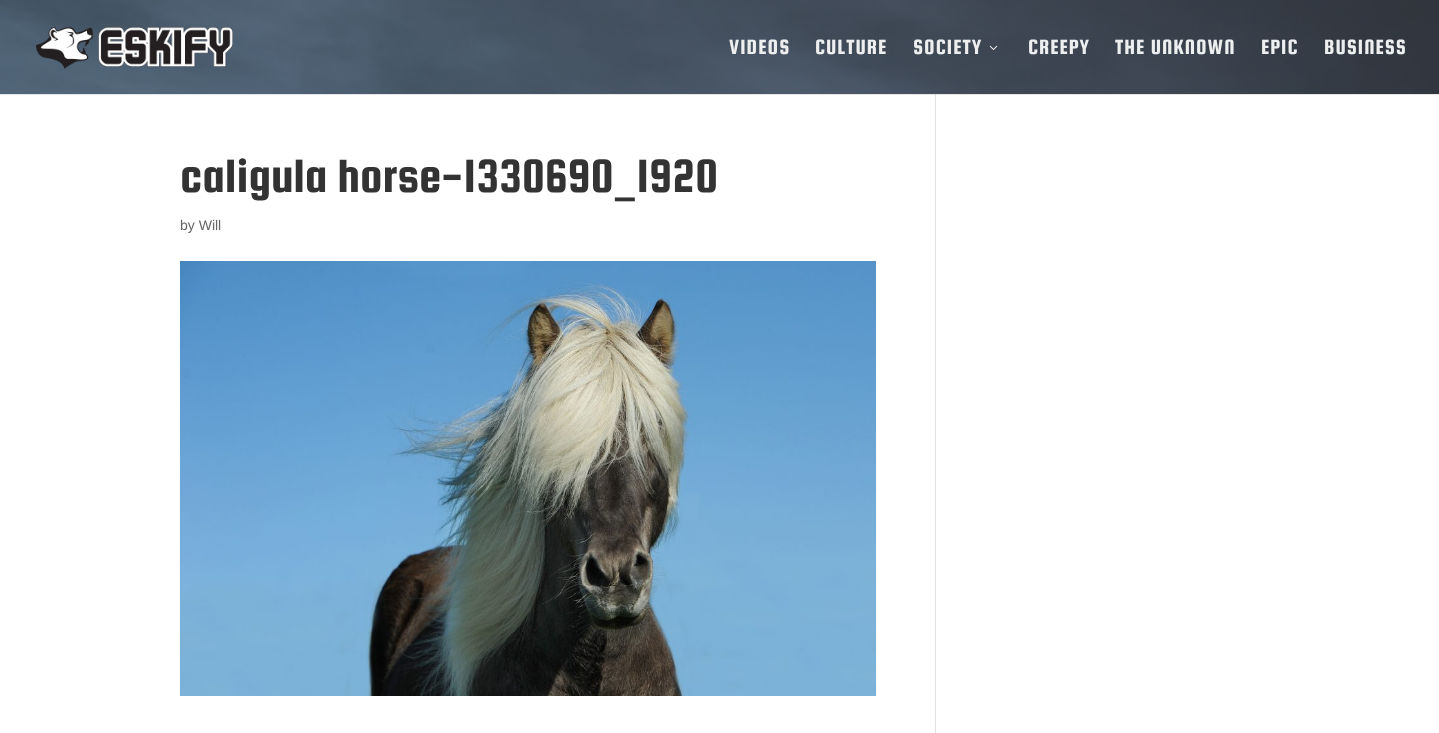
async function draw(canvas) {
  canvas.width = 1439
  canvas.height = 733
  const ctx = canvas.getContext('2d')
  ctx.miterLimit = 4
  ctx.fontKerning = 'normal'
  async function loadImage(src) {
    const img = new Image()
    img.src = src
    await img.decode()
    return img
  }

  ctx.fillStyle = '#fff'
  ctx.fillRect(0, 0, 1439, 733)
  ctx.fillStyle = '#e6e6e6'
  ctx.fillRect(0, 94, 1439, 1)
  ctx.fillStyle = '#e2e2e2'
  ctx.fillRect(935, 93, 1, 640)
  ctx.fillStyle = '#5b5b5b'
  ctx.fillRect(0, 0, 1439, 94)
  ctx.drawImage(await loadImage('image0.png'), 0, 0, 1439, 94)
  ctx.drawImage(await loadImage('image1.png'), 36, 27, 197, 42)
  ctx.letterSpacing = '1px'
  ctx.font = '22px Squada One'
  ctx.fillStyle = '#edeeef'
  ctx.fillText('VIDEOS', 729, 54)
  ctx.fillText('CULTURE', 815, 54)
  ctx.fillText('SOCIETY', 913, 54)
  ctx.drawImage(await loadImage('image2.png'), 989, 45, 9, 5)
  ctx.fillText('CREEPY', 1028, 54)
  ctx.fillText('THE UNKNOWN', 1115, 54)
  ctx.fillText('EPIC', 1261, 54)
  ctx.fillText('BUSINESS', 1324, 54)
  ctx.letterSpacing = '0px'
  ctx.font = '50px Squada One'
  ctx.fillStyle = '#333'
  ctx.fillText('caligula horse-1330690_1920', 180, 192)
  ctx.font = '14px Liberation Sans'
  ctx.fillStyle = '#666'
  ctx.fillText('by Will', 180, 230)
  ctx.drawImage(await loadImage('image3.png'), 180, 261, 696, 435)
  ctx.fillStyle = '#cbcbcb'
  ctx.fillRect(935, 94, 1, 1)
}

draw(document.querySelector('canvas'))
